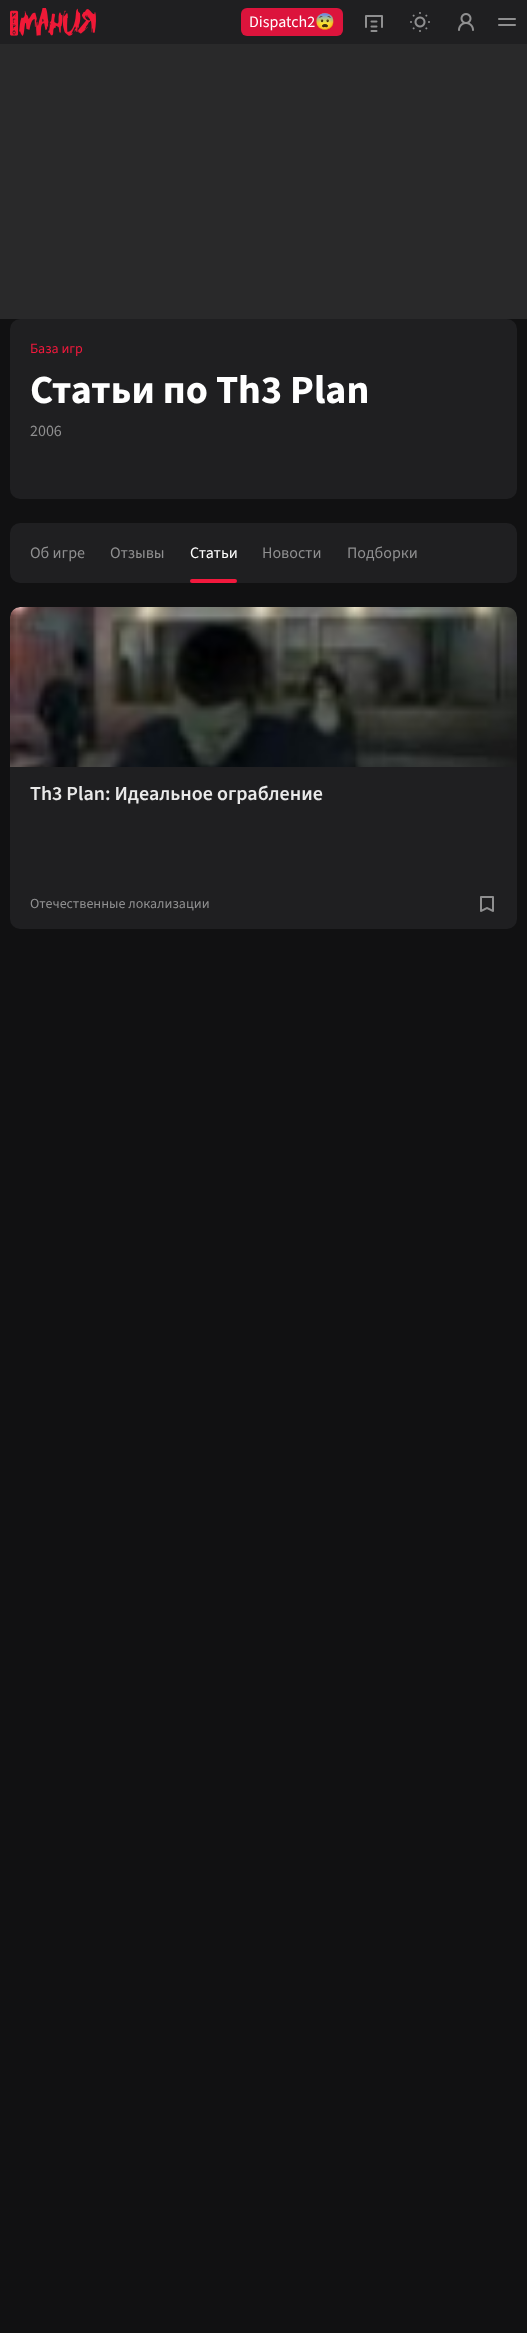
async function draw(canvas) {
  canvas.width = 527
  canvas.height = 2333
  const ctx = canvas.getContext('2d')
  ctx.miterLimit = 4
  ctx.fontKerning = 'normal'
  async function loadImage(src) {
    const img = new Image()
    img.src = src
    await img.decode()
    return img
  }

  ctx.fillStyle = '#111112'
  ctx.fillRect(0, 0, 527, 2333)
  ctx.fillStyle = '#1f1f21'
  ctx.fillRect(0, 0, 527, 44)
  ctx.drawImage(await loadImage('image0.png'), 10, 8, 86, 28)
  ctx.fillStyle = '#dc143c'
  ctx.beginPath()
  ctx.roundRect(241, 8, 102, 28, 6)
  ctx.fill()
  ctx.font = '16px "Source Sans 3"'
  ctx.fillStyle = '#fff'
  ctx.fillText('Dispatch2', 249, 27)
  ctx.font = '16px Noto Color Emoji'
  ctx.fillText('😨', 315, 27)
  ctx.drawImage(await loadImage('image1.png'), 365, 15, 18, 17)
  ctx.drawImage(await loadImage('image2.png'), 410, 12, 20, 20)
  ctx.drawImage(await loadImage('image3.png'), 458, 13, 16, 18)
  ctx.drawImage(await loadImage('image4.png'), 498, 18, 18, 8)
  ctx.fillStyle = '#29292a'
  ctx.fillRect(0, 44, 527, 275)
  ctx.fillStyle = '#1f1f21'
  ctx.beginPath()
  ctx.roundRect(10, 319, 507, 180, 10)
  ctx.fill()
  ctx.font = '14px "Source Sans 3"'
  ctx.fillStyle = '#f2193d'
  ctx.fillText('База игр', 30, 353)
  ctx.font = 'bold 40px "Source Sans 3"'
  ctx.fillStyle = '#fff'
  ctx.fillText('Статьи по Th3 Plan', 30, 403)
  ctx.font = '16px "Source Sans 3"'
  ctx.fillStyle = '#8f8f90'
  ctx.fillText('2006', 30, 436)
  ctx.fillStyle = '#1f1f21'
  ctx.beginPath()
  ctx.roundRect(10, 523, 507, 60, 10)
  ctx.fill()
  ctx.fillStyle = '#8f8f90'
  ctx.fillText('Об игре', 30, 558)
  ctx.fillText('Отзывы', 110, 558)
  ctx.fillStyle = '#fff'
  ctx.fillText('Статьи', 190, 558)
  ctx.fillStyle = '#f2193d'
  ctx.beginPath()
  ctx.roundRect(190, 579, 47, 4, 2)
  ctx.fill()
  ctx.fillStyle = '#8f8f90'
  ctx.fillText('Новости', 262, 558)
  ctx.fillText('Подборки', 347, 558)
  ctx.fillStyle = '#1f1f21'
  ctx.beginPath()
  ctx.roundRect(10, 607, 507, 322, 10)
  ctx.fill()
  ctx.beginPath()
  ctx.roundRect(10, 607, 507, 160, [10, 10, 0, 0])
  ctx.fill()
  ctx.drawImage(await loadImage('image5.png'), 10, 607, 507, 160)
  ctx.font = '600 20px "Source Sans 3"'
  ctx.fillStyle = '#e9e9e9'
  ctx.fillText('Th3 Plan: Идеальное ограбление', 30, 800)
  ctx.font = '14px "Source Sans 3"'
  ctx.fillStyle = '#8f8f90'
  ctx.fillText('Отечественные локализации', 30, 908)
  ctx.drawImage(await loadImage('image6.png'), 480, 896, 14, 16)
}

draw(document.querySelector('canvas'))
